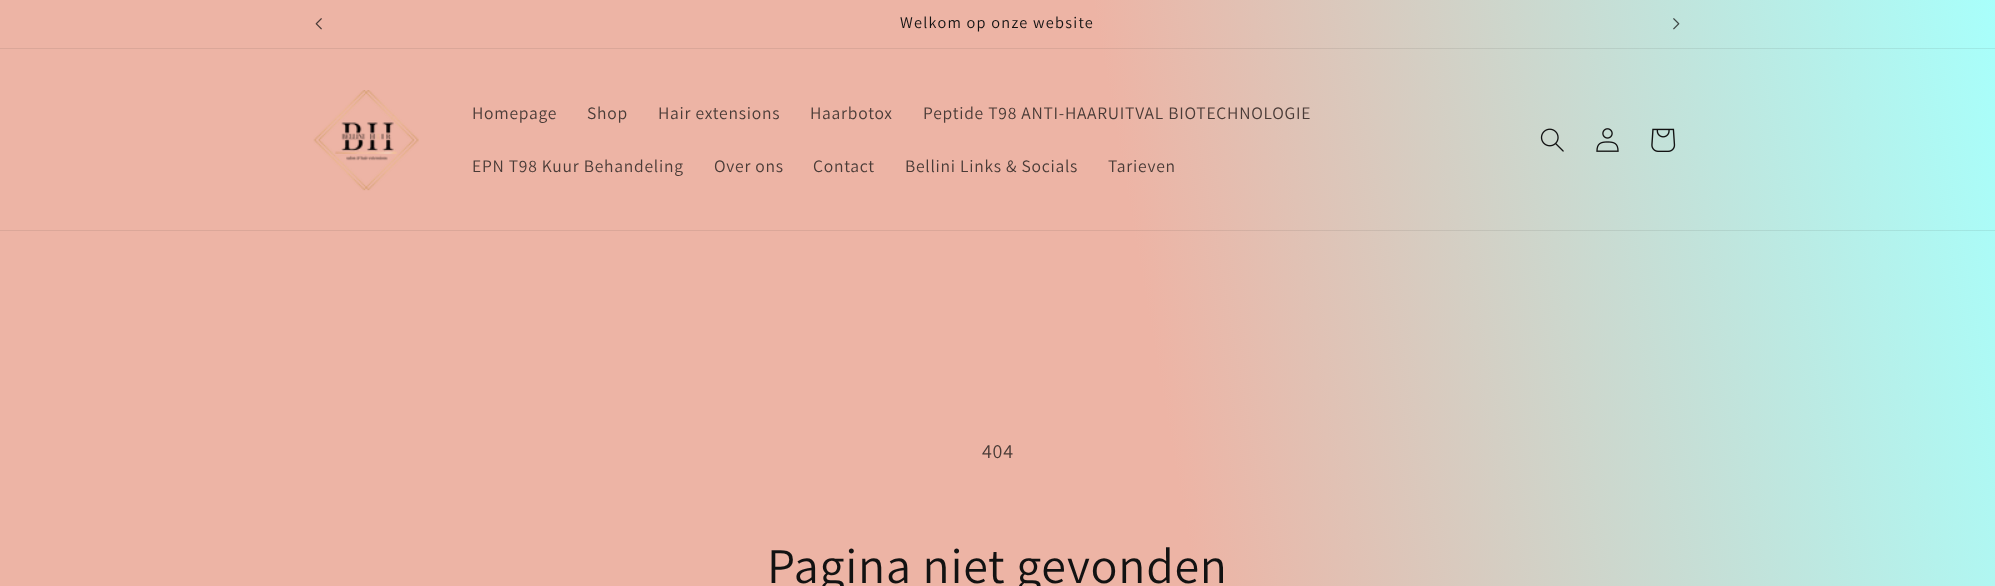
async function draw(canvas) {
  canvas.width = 1995
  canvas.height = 586
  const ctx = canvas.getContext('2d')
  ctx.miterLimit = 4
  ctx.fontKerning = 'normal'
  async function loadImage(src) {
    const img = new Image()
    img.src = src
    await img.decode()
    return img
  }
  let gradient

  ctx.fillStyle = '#fff'
  ctx.fillRect(0, 0, 1995, 586)
  gradient = ctx.createLinearGradient(-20, 473, 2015, 114)
  gradient.addColorStop(0.57, '#edb4a5')
  gradient.addColorStop(1, '#a8fffb')
  ctx.fillStyle = gradient
  ctx.fillRect(0, 0, 1995, 586)
  gradient = ctx.createLinearGradient(-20, 473, 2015, 114)
  gradient.addColorStop(0.57, '#dba799')
  gradient.addColorStop(1, '#9cece8')
  ctx.fillStyle = gradient
  ctx.fillRect(0, 48, 1995, 1)
  ctx.fillRect(0, 230, 1995, 1)
  ctx.drawImage(await loadImage('image0.png'), 315, 18, 7, 12)
  ctx.letterSpacing = '1.25px'
  ctx.font = '16.25px Assistant'
  ctx.fillStyle = '#121212'
  ctx.fillText('Welkom op onze website', 900, 28)
  ctx.drawImage(await loadImage('image1.png'), 1673, 18, 7, 12)
  ctx.drawImage(await loadImage('image2.png'), 313, 90, 106, 101)
  ctx.letterSpacing = '0.75px'
  ctx.font = '17.5px Assistant'
  ctx.fillStyle = '#493b37'
  ctx.fillText('Homepage', 472, 119)
  ctx.fillText('Shop', 587, 119)
  ctx.fillText('Hair extensions', 658, 119)
  ctx.fillText('Haarbotox', 810, 119)
  ctx.fillText('Peptide T98 ANTI-HAARUITVAL BIOTECHNOLOGIE', 923, 119)
  ctx.fillText('EPN T98 Kuur Behandeling', 472, 172)
  ctx.fillText('Over ons', 714, 172)
  ctx.fillText('Contact', 813, 172)
  ctx.fillText('Bellini Links & Socials', 905, 172)
  ctx.fillText('Tarieven', 1108, 172)
  ctx.drawImage(await loadImage('image3.png'), 1540, 128, 24, 24)
  ctx.drawImage(await loadImage('image4.png'), 1596, 128, 23, 24)
  ctx.drawImage(await loadImage('image5.png'), 1651, 128, 25, 24)
  ctx.font = '20px Assistant'
  ctx.fillText('404', 982, 458)
  ctx.font = '50px Assistant'
  ctx.fillStyle = '#121212'
  ctx.fillText('Pagina niet gevonden', 767, 583)
}

draw(document.querySelector('canvas'))
